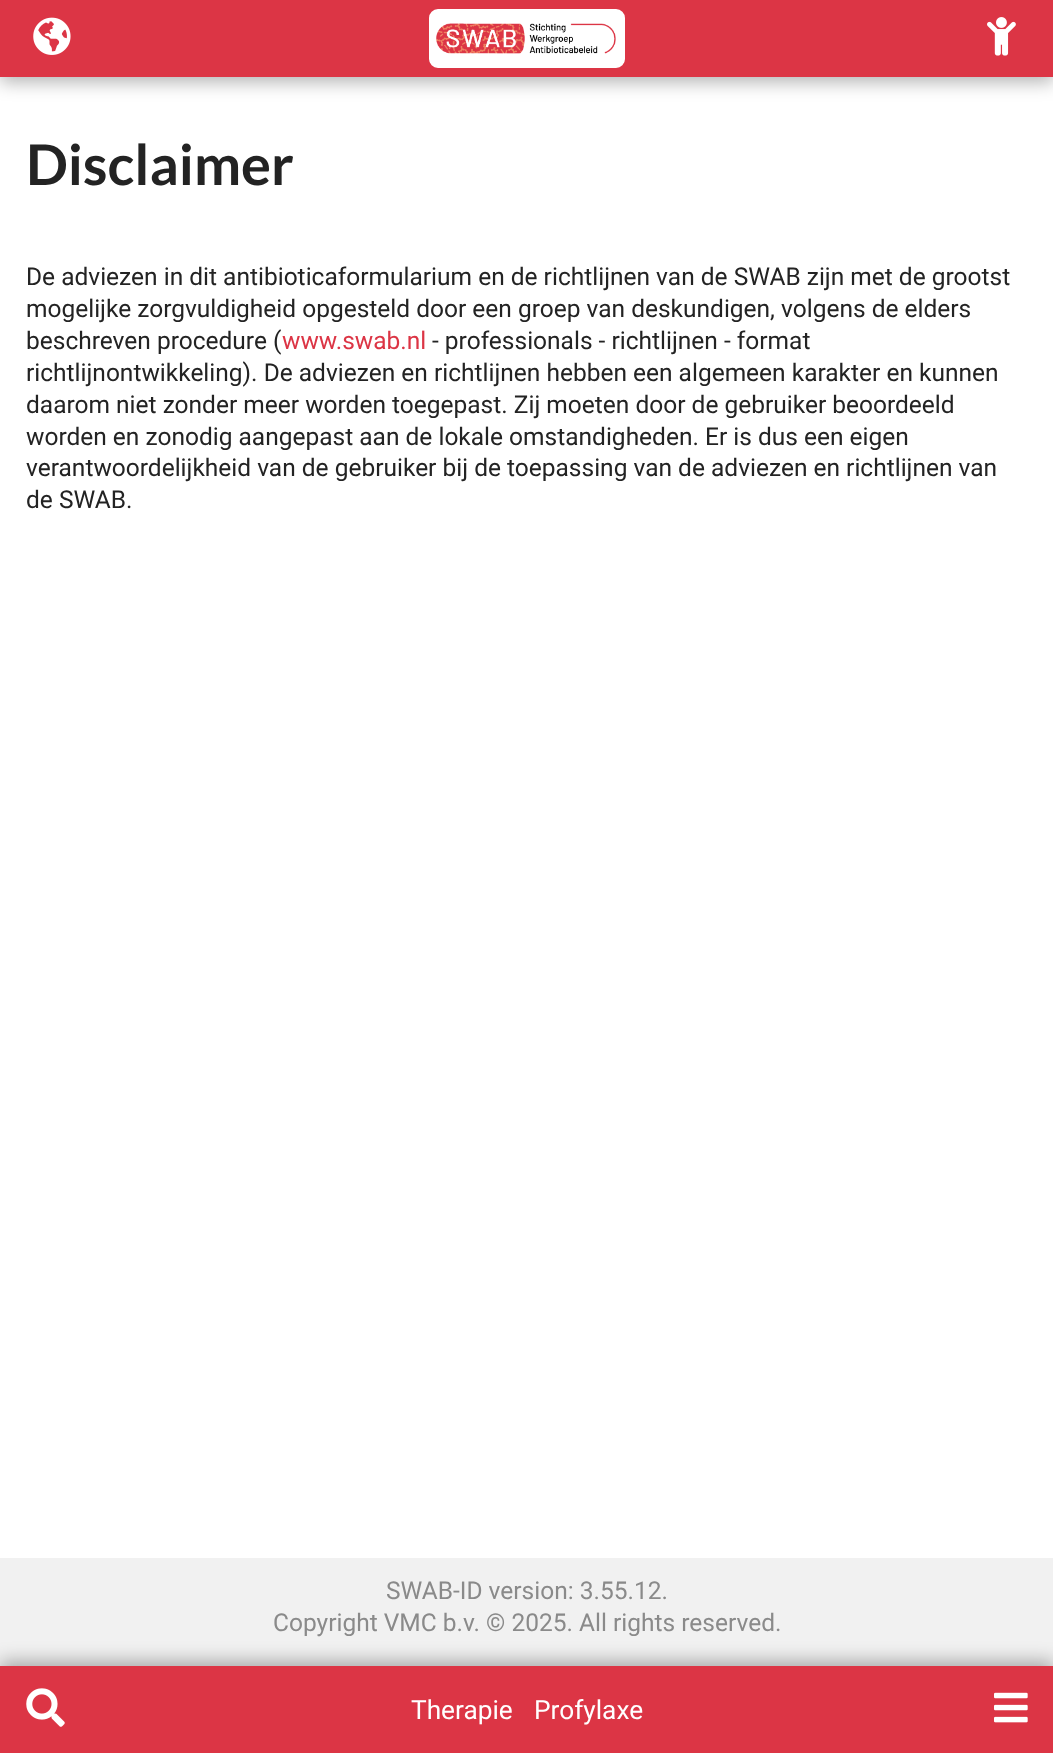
async function draw(canvas) {
  canvas.width = 1053
  canvas.height = 1753
  const ctx = canvas.getContext('2d')
  ctx.miterLimit = 4
  ctx.fontKerning = 'normal'
  async function loadImage(src) {
    const img = new Image()
    img.src = src
    await img.decode()
    return img
  }

  ctx.fillStyle = '#fff'
  ctx.fillRect(0, 0, 1053, 1753)
  ctx.fillStyle = '#0000004d'
  ctx.filter = 'blur(9px)'
  ctx.beginPath()
  ctx.rect(0, 5, 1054, 77)
  ctx.fill()
  ctx.filter = 'none'
  ctx.fillStyle = '#dc3545'
  ctx.fillRect(0, 0, 1053, 77)
  ctx.drawImage(await loadImage('image0.png'), 33, 17, 38, 38)
  ctx.fillStyle = '#fff'
  ctx.beginPath()
  ctx.roundRect(431, 11, 192, 55, 7)
  ctx.fill()
  ctx.strokeStyle = '#fff'
  ctx.lineWidth = 4
  ctx.stroke()
  ctx.drawImage(await loadImage('image1.png'), 436, 23, 180, 31)
  ctx.drawImage(await loadImage('image2.png'), 987, 17, 29, 39)
  ctx.font = 'bold 56px Lato'
  ctx.fillStyle = '#232323'
  ctx.fillText('Disclaimer', 26, 185)
  ctx.font = '24.5px Roboto'
  ctx.fillText('De adviezen in dit antibioticaformularium en de richtlijnen van de SWAB zijn met de grootst', 26, 285)
  ctx.fillText('mogelijke zorgvuldigheid opgesteld door een groep van deskundigen, volgens de elders', 26, 317)
  ctx.fillText('beschreven procedure (', 26, 349)
  ctx.fillStyle = '#dc3545'
  ctx.fillText('www.swab.nl', 282, 349)
  ctx.fillStyle = '#232323'
  ctx.fillText('- professionals - richtlijnen - format', 432, 349)
  ctx.fillText('richtlijnontwikkeling). De adviezen en richtlijnen hebben een algemeen karakter en kunnen', 26, 381)
  ctx.fillText('daarom niet zonder meer worden toegepast. Zij moeten door de gebruiker beoordeeld', 26, 413)
  ctx.fillText('worden en zonodig aangepast aan de lokale omstandigheden. Er is dus een eigen', 26, 445)
  ctx.fillText('verantwoordelijkheid van de gebruiker bij de toepassing van de adviezen en richtlijnen van', 26, 476)
  ctx.fillText('de SWAB.', 26, 508)
  ctx.fillStyle = '#f1f1f1'
  ctx.fillRect(0, 1558, 1053, 108)
  ctx.fillStyle = '#8a8a8a'
  ctx.fillText('SWAB-ID version: 3.55.12.', 386, 1599)
  ctx.fillText('Copyright VMC b.v. © 2025. All rights reserved.', 273, 1631)
  ctx.fillStyle = '#0000004d'
  ctx.filter = 'blur(9px)'
  ctx.beginPath()
  ctx.rect(0, 1661, 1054, 87)
  ctx.fill()
  ctx.filter = 'none'
  ctx.fillStyle = '#dc3545'
  ctx.fillRect(0, 1666, 1053, 87)
  ctx.drawImage(await loadImage('image3.png'), 26, 1688, 39, 39)
  ctx.font = '26.25px Roboto'
  ctx.fillStyle = '#fff'
  ctx.fillText('Therapie', 411, 1719)
  ctx.fillText('Profylaxe', 534, 1719)
  ctx.drawImage(await loadImage('image4.png'), 994, 1692, 34, 31)
}

draw(document.querySelector('canvas'))
